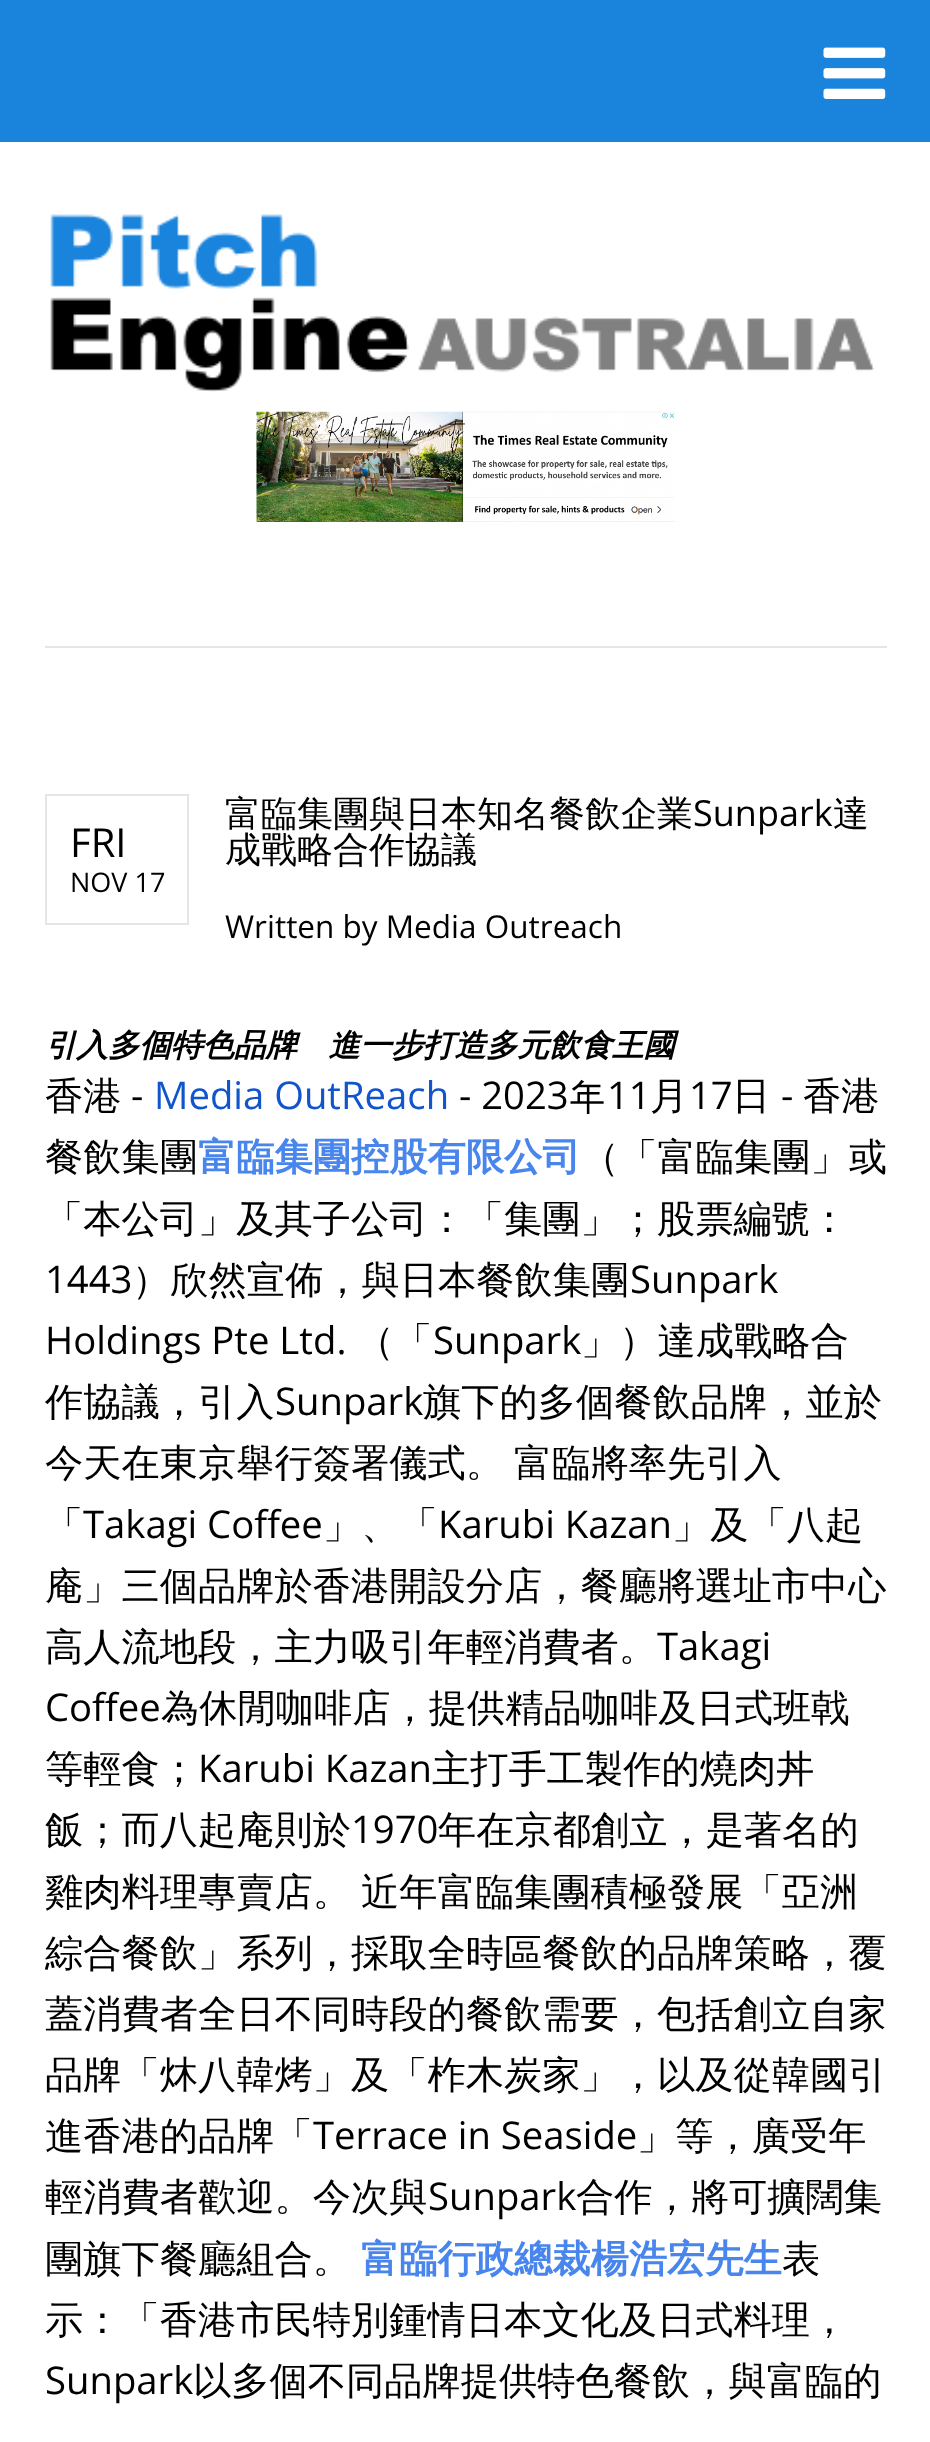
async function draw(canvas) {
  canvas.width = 930
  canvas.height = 2442
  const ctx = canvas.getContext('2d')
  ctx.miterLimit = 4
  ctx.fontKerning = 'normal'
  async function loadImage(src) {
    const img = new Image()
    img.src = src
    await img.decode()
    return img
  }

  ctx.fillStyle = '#fff'
  ctx.fillRect(0, 0, 930, 2442)
  ctx.fillStyle = '#1a84dd'
  ctx.fillRect(0, 0, 930, 142)
  ctx.drawImage(await loadImage('image0.png'), 823, 47, 63, 52)
  ctx.drawImage(await loadImage('image1.png'), 50, 214, 825, 178)
  ctx.drawImage(await loadImage('image2.png'), 256, 411, 419, 111)
  ctx.fillStyle = '#e5e5e5'
  ctx.fillRect(45, 646, 842, 2)
  ctx.strokeStyle = '#e5e5e5'
  ctx.lineWidth = 2
  ctx.strokeRect(46, 795, 142, 129)
  ctx.font = '40px Open Sans'
  ctx.fillStyle = '#000'
  ctx.fillText('FRI', 70, 857)
  ctx.font = '27px Open Sans'
  ctx.fillText('NOV 17', 70, 892)
  ctx.font = '500 36px WenQuanYi Zen Hei'
  ctx.fillText('富臨集團與日本知名餐飲企業', 225, 826)
  ctx.font = '36px Open Sans'
  ctx.fillText('Sunpark', 693, 826)
  ctx.font = '500 36px WenQuanYi Zen Hei'
  ctx.fillText('達', 833, 826)
  ctx.fillText('成戰略合作協議', 225, 862)
  ctx.font = '31.5px Open Sans'
  ctx.fillText('Written by Media Outreach', 225, 938)
  ctx.font = 'italic bold 31.5px WenQuanYi Zen Hei'
  ctx.fillText('引入多個特色品牌　進一步打造多元飲食王國', 45, 1056)
  ctx.font = '500 38.25px WenQuanYi Zen Hei'
  ctx.fillText('香港', 45, 1109)
  ctx.font = '38.25px Open Sans'
  ctx.fillText('-', 131, 1109)
  ctx.fillStyle = '#15c'
  ctx.fillText('Media OutReach', 154, 1109)
  ctx.fillStyle = '#000'
  ctx.fillText('- 2023', 459, 1109)
  ctx.font = '500 38.25px WenQuanYi Zen Hei'
  ctx.fillText('年', 568, 1109)
  ctx.font = '38.25px Open Sans'
  ctx.fillText('11', 607, 1109)
  ctx.font = '500 38.25px WenQuanYi Zen Hei'
  ctx.fillText('月', 650, 1109)
  ctx.font = '38.25px Open Sans'
  ctx.fillText('17', 689, 1109)
  ctx.font = '500 38.25px WenQuanYi Zen Hei'
  ctx.fillText('日', 732, 1109)
  ctx.font = '38.25px Open Sans'
  ctx.fillText('-', 781, 1109)
  ctx.font = '500 38.25px WenQuanYi Zen Hei'
  ctx.fillText('香港', 803, 1109)
  ctx.fillText('餐飲集團', 45, 1170)
  ctx.font = 'bold 38.25px WenQuanYi Zen Hei'
  ctx.fillStyle = '#4885ed'
  ctx.fillText('富臨集團控股有限公司', 198, 1170)
  ctx.font = '500 38.25px WenQuanYi Zen Hei'
  ctx.fillStyle = '#000'
  ctx.fillText('（「富臨集團」或', 581, 1170)
  ctx.fillText('「本公司」及其子公司：「集團」；股票編號：', 45, 1232)
  ctx.font = '38.25px Open Sans'
  ctx.fillText('1443', 45, 1293)
  ctx.font = '500 38.25px WenQuanYi Zen Hei'
  ctx.fillText('）欣然宣佈，與日本餐飲集團', 132, 1293)
  ctx.font = '38.25px Open Sans'
  ctx.fillText('Sunpark', 630, 1293)
  ctx.fillText('Holdings Pte Ltd.', 45, 1354)
  ctx.font = '500 38.25px WenQuanYi Zen Hei'
  ctx.fillText('（「', 356, 1354)
  ctx.font = '38.25px Open Sans'
  ctx.fillText('Sunpark', 433, 1354)
  ctx.font = '500 38.25px WenQuanYi Zen Hei'
  ctx.fillText('」）達成戰略合', 581, 1354)
  ctx.fillText('作協議，引入', 45, 1415)
  ctx.font = '38.25px Open Sans'
  ctx.fillText('Sunpark', 275, 1415)
  ctx.font = '500 38.25px WenQuanYi Zen Hei'
  ctx.fillText('旗下的多個餐飲品牌，並於', 423, 1415)
  ctx.fillText('今天在東京舉行簽署儀式。', 45, 1476)
  ctx.fillText('富臨將率先引入', 514, 1476)
  ctx.fillText('「', 45, 1538)
  ctx.font = '38.25px Open Sans'
  ctx.fillText('Takagi Coffee', 83, 1538)
  ctx.font = '500 38.25px WenQuanYi Zen Hei'
  ctx.fillText('」、「', 323, 1538)
  ctx.font = '38.25px Open Sans'
  ctx.fillText('Karubi Kazan', 438, 1538)
  ctx.font = '500 38.25px WenQuanYi Zen Hei'
  ctx.fillText('」及「八起', 672, 1538)
  ctx.fillText('庵」三個品牌於香港開設分店，餐廳將選址市中心', 45, 1599)
  ctx.fillText('高人流地段，主力吸引年輕消費者。', 45, 1660)
  ctx.font = '38.25px Open Sans'
  ctx.fillText('Takagi', 657, 1660)
  ctx.fillText('Coffee', 45, 1721)
  ctx.font = '500 38.25px WenQuanYi Zen Hei'
  ctx.fillText('為休閒咖啡店，提供精品咖啡及日式班戟', 161, 1721)
  ctx.fillText('等輕食；', 45, 1782)
  ctx.font = '38.25px Open Sans'
  ctx.fillText('Karubi Kazan', 198, 1782)
  ctx.font = '500 38.25px WenQuanYi Zen Hei'
  ctx.fillText('主打手工製作的燒肉丼', 432, 1782)
  ctx.fillText('飯；而八起庵則於', 45, 1843)
  ctx.font = '38.25px Open Sans'
  ctx.fillText('1970', 351, 1843)
  ctx.font = '500 38.25px WenQuanYi Zen Hei'
  ctx.fillText('年在京都創立，是著名的', 438, 1843)
  ctx.fillText('雞肉料理專賣店。', 45, 1905)
  ctx.fillText('近年富臨集團積極發展「亞洲', 361, 1905)
  ctx.fillText('綜合餐飲」系列，採取全時區餐飲的品牌策略，覆', 45, 1966)
  ctx.fillText('蓋消費者全日不同時段的餐飲需要，包括創立自家', 45, 2027)
  ctx.fillText('品牌「炑八韓烤」及「柞木炭家」，以及從韓國引', 45, 2088)
  ctx.fillText('進香港的品牌「', 45, 2149)
  ctx.font = '38.25px Open Sans'
  ctx.fillText('Terrace in Seaside', 313, 2149)
  ctx.font = '500 38.25px WenQuanYi Zen Hei'
  ctx.fillText('」等，廣受年', 637, 2149)
  ctx.fillText('輕消費者歡迎。今次與', 45, 2210)
  ctx.font = '38.25px Open Sans'
  ctx.fillText('Sunpark', 428, 2210)
  ctx.font = '500 38.25px WenQuanYi Zen Hei'
  ctx.fillText('合作，將可擴闊集', 576, 2210)
  ctx.fillText('團旗下餐廳組合。', 45, 2272)
  ctx.font = 'bold 38.25px WenQuanYi Zen Hei'
  ctx.fillStyle = '#4885ed'
  ctx.fillText('富臨行政總裁楊浩宏先生', 361, 2272)
  ctx.font = '500 38.25px WenQuanYi Zen Hei'
  ctx.fillStyle = '#000'
  ctx.fillText('表', 782, 2272)
  ctx.fillText('示：「香港市民特別鍾情日本文化及日式料理，', 45, 2333)
  ctx.font = '38.25px Open Sans'
  ctx.fillText('Sunpark', 45, 2394)
  ctx.font = '500 38.25px WenQuanYi Zen Hei'
  ctx.fillText('以多個不同品牌提供特色餐飲，與富臨的', 193, 2394)
}

draw(document.querySelector('canvas'))
